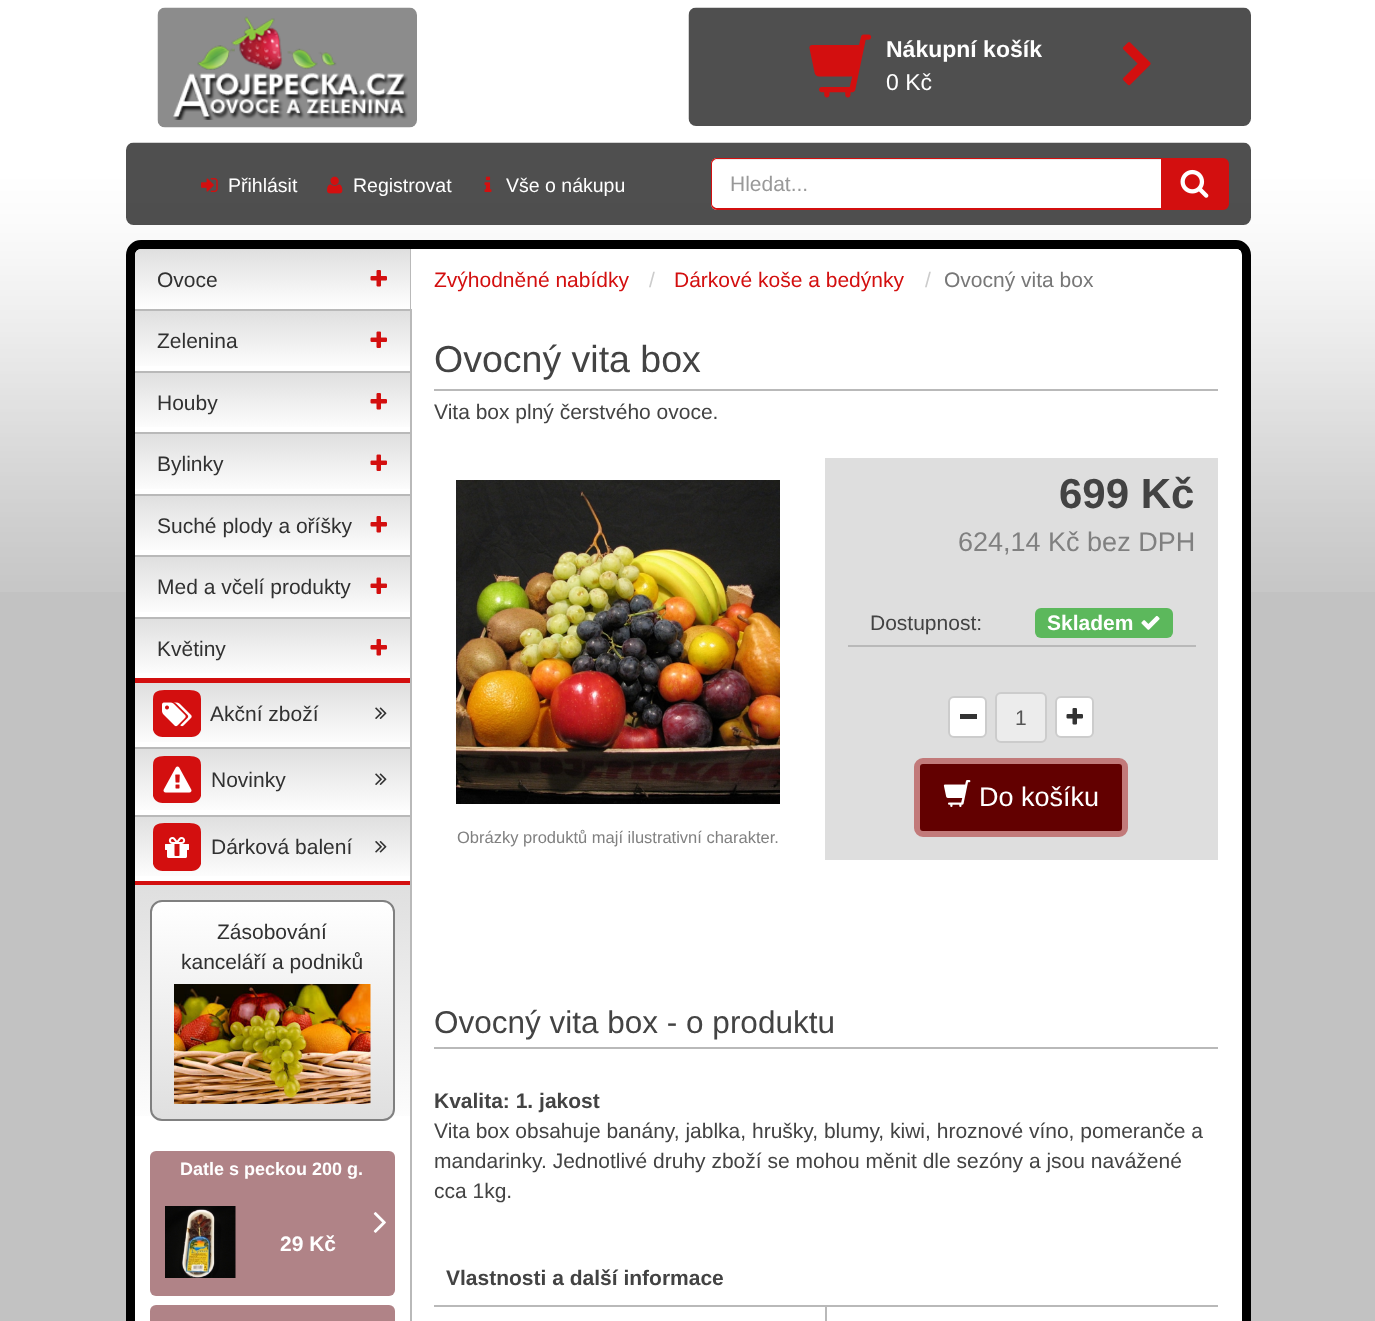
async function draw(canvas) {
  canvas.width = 1375
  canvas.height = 1321
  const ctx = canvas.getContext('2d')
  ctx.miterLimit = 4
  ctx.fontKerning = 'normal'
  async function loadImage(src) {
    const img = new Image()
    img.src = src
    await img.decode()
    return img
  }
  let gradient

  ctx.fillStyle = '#c2c2c2'
  ctx.fillRect(0, 0, 1375, 1321)
  ctx.drawImage(await loadImage('image0.png'), 0, 0, 1375, 592)
  ctx.drawImage(await loadImage('image1.png'), 157, 7, 260, 121)
  ctx.drawImage(await loadImage('image2.png'), 173, 16, 235, 104)
  ctx.drawImage(await loadImage('image3.png'), 688, 7, 563, 119)
  ctx.drawImage(await loadImage('image4.png'), 809, 34, 63, 64)
  ctx.font = 'bold 23px Liberation Sans'
  ctx.fillStyle = '#fff'
  ctx.fillText('Nákupní košík', 886, 57)
  ctx.font = '23px Liberation Sans'
  ctx.fillText('0 Kč', 886, 90)
  ctx.drawImage(await loadImage('image5.png'), 1122, 42, 29, 44)
  ctx.drawImage(await loadImage('image6.png'), 126, 142, 1125, 83)
  ctx.drawImage(await loadImage('image7.png'), 201, 178, 17, 14)
  ctx.font = '19.5px Liberation Sans'
  ctx.fillText('Přihlásit', 228, 192)
  ctx.drawImage(await loadImage('image8.png'), 327, 176, 16, 18)
  ctx.fillText('Registrovat', 353, 192)
  ctx.drawImage(await loadImage('image9.png'), 484, 176, 8, 16)
  ctx.fillText('Vše o nákupu', 506, 192)
  ctx.beginPath()
  ctx.roundRect(711, 158, 450, 52, [6, 0, 0, 6])
  ctx.fill()
  ctx.fillStyle = '#ececec'
  ctx.beginPath()
  ctx.moveTo(717, 160)
  ctx.lineTo(1161, 160)
  ctx.lineTo(1161, 159)
  ctx.lineTo(718, 159)
  ctx.bezierCurveTo(716, 159, 714, 160, 713, 162)
  ctx.bezierCurveTo(714, 161, 716, 160, 717, 160)
  ctx.closePath()
  ctx.fill()
  ctx.fillStyle = '#d30f0f'
  ctx.beginPath()
  ctx.moveTo(717, 158)
  ctx.lineTo(1161, 158)
  ctx.lineTo(1161, 210)
  ctx.lineTo(717, 210)
  ctx.bezierCurveTo(714, 210, 711, 207, 711, 204)
  ctx.lineTo(711, 164)
  ctx.bezierCurveTo(711, 160, 714, 158, 717, 158)
  ctx.closePath()
  ctx.moveTo(717, 159)
  ctx.lineTo(1161, 159)
  ctx.lineTo(1161, 208)
  ctx.lineTo(717, 208)
  ctx.bezierCurveTo(715, 208, 712, 206, 712, 204)
  ctx.lineTo(712, 164)
  ctx.bezierCurveTo(712, 161, 715, 159, 717, 159)
  ctx.closePath()
  ctx.fill('evenodd')
  ctx.font = '21px Liberation Sans'
  ctx.fillStyle = '#999'
  ctx.fillText('Hledat...', 730, 191)
  ctx.fillStyle = '#d30f0f'
  ctx.beginPath()
  ctx.roundRect(1162, 159, 66, 50, [0, 5, 5, 0])
  ctx.fill()
  ctx.strokeStyle = '#d30f0f'
  ctx.lineWidth = 2
  ctx.stroke()
  ctx.drawImage(await loadImage('image10.png'), 1180, 169, 29, 29)
  ctx.fillStyle = '#fff'
  ctx.beginPath()
  ctx.roundRect(130.5, 244.5, 1116, 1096, 10.5)
  ctx.fill()
  ctx.strokeStyle = '#000'
  ctx.lineWidth = 9
  ctx.stroke()
  gradient = ctx.createLinearGradient(272, 249, 272, 309)
  gradient.addColorStop(0, '#dfdfdf')
  gradient.addColorStop(1, '#fff')
  ctx.fillStyle = gradient
  ctx.beginPath()
  ctx.roundRect(135, 249, 275, 60, [6, 0, 0, 0])
  ctx.fill()
  ctx.fillStyle = '#313131'
  ctx.fillText('Ovoce', 157, 287)
  ctx.drawImage(await loadImage('image11.png'), 370, 270, 17, 17)
  gradient = ctx.createLinearGradient(272, 311, 272, 371)
  gradient.addColorStop(0, '#dfdfdf')
  gradient.addColorStop(1, '#fff')
  ctx.fillStyle = gradient
  ctx.fillRect(135, 311, 275, 55)
  ctx.fillStyle = '#b9b9b9'
  ctx.fillRect(135, 309, 275, 2)
  ctx.fillStyle = '#313131'
  ctx.fillText('Zelenina', 157, 348)
  ctx.drawImage(await loadImage('image12.png'), 370, 331, 17, 17)
  gradient = ctx.createLinearGradient(272, 372, 272, 432)
  gradient.addColorStop(0, '#dfdfdf')
  gradient.addColorStop(1, '#fff')
  ctx.fillStyle = gradient
  ctx.fillRect(135, 373, 275, 54)
  ctx.fillStyle = '#b9b9b9'
  ctx.fillRect(135, 371, 275, 2)
  ctx.fillStyle = '#313131'
  ctx.fillText('Houby', 157, 410)
  ctx.drawImage(await loadImage('image11.png'), 370, 393, 17, 17)
  gradient = ctx.createLinearGradient(272, 434, 272, 494)
  gradient.addColorStop(0, '#dfdfdf')
  gradient.addColorStop(1, '#fff')
  ctx.fillStyle = gradient
  ctx.fillRect(135, 434, 275, 55)
  ctx.fillStyle = '#b9b9b9'
  ctx.fillRect(135, 432, 275, 2)
  ctx.fillStyle = '#313131'
  ctx.fillText('Bylinky', 157, 471)
  ctx.drawImage(await loadImage('image12.png'), 370, 454, 17, 17)
  gradient = ctx.createLinearGradient(272, 495, 272, 555)
  gradient.addColorStop(0, '#dfdfdf')
  gradient.addColorStop(1, '#fff')
  ctx.fillStyle = gradient
  ctx.fillRect(135, 496, 275, 54)
  ctx.fillStyle = '#b9b9b9'
  ctx.fillRect(135, 494, 275, 2)
  ctx.fillStyle = '#313131'
  ctx.fillText('Suché plody a oříšky', 157, 533)
  ctx.drawImage(await loadImage('image11.png'), 370, 516, 17, 17)
  gradient = ctx.createLinearGradient(272, 557, 272, 617)
  gradient.addColorStop(0, '#dfdfdf')
  gradient.addColorStop(1, '#fff')
  ctx.fillStyle = gradient
  ctx.fillRect(135, 557, 275, 55)
  ctx.fillStyle = '#b9b9b9'
  ctx.fillRect(135, 555, 275, 2)
  ctx.fillStyle = '#313131'
  ctx.fillText('Med a včelí produkty', 157, 594)
  ctx.drawImage(await loadImage('image12.png'), 370, 577, 17, 17)
  gradient = ctx.createLinearGradient(272, 618, 272, 678)
  gradient.addColorStop(0, '#dfdfdf')
  gradient.addColorStop(1, '#fff')
  ctx.fillStyle = gradient
  ctx.fillRect(135, 619, 275, 54)
  ctx.fillStyle = '#b9b9b9'
  ctx.fillRect(135, 617, 275, 2)
  ctx.fillStyle = '#313131'
  ctx.fillText('Květiny', 157, 656)
  ctx.drawImage(await loadImage('image11.png'), 370, 639, 17, 17)
  gradient = ctx.createLinearGradient(272, 683, 272, 747)
  gradient.addColorStop(0, '#dfdfdf')
  gradient.addColorStop(1, '#fff')
  ctx.fillStyle = gradient
  ctx.fillRect(135, 683, 275, 59)
  ctx.fillStyle = '#d30f0f'
  ctx.fillRect(135, 678, 275, 5)
  ctx.beginPath()
  ctx.moveTo(201, 699)
  ctx.lineTo(201, 730)
  ctx.bezierCurveTo(199, 737, 193, 737, 187, 737)
  ctx.lineTo(167, 737)
  ctx.bezierCurveTo(161, 737, 155, 737, 153, 730)
  ctx.lineTo(153, 699)
  ctx.bezierCurveTo(153, 690, 160, 690, 167, 690)
  ctx.lineTo(187, 690)
  ctx.bezierCurveTo(193, 690, 201, 690, 201, 699)
  ctx.closePath()
  ctx.fill()
  ctx.drawImage(await loadImage('image13.png'), 162, 702, 30, 25)
  ctx.fillStyle = '#313131'
  ctx.fillText('Akční zboží', 210, 721)
  ctx.drawImage(await loadImage('image14.png'), 375, 707, 12, 12)
  gradient = ctx.createLinearGradient(272, 749, 272, 815)
  gradient.addColorStop(0, '#dfdfdf')
  gradient.addColorStop(1, '#fff')
  ctx.fillStyle = gradient
  ctx.fillRect(135, 749, 275, 61)
  ctx.fillStyle = '#b9b9b9'
  ctx.fillRect(135, 747, 275, 2)
  ctx.fillStyle = '#d30f0f'
  ctx.beginPath()
  ctx.moveTo(201, 765)
  ctx.lineTo(201, 796)
  ctx.bezierCurveTo(199, 803, 193, 803, 187, 803)
  ctx.lineTo(167, 803)
  ctx.bezierCurveTo(161, 803, 155, 803, 153, 796)
  ctx.lineTo(153, 765)
  ctx.bezierCurveTo(153, 756, 160, 756, 167, 756)
  ctx.lineTo(187, 756)
  ctx.bezierCurveTo(193, 756, 201, 756, 201, 765)
  ctx.closePath()
  ctx.fill()
  ctx.drawImage(await loadImage('image15.png'), 163, 766, 29, 27)
  ctx.fillStyle = '#313131'
  ctx.fillText('Novinky', 211, 787)
  ctx.drawImage(await loadImage('image16.png'), 375, 773, 12, 12)
  gradient = ctx.createLinearGradient(272, 816, 272, 881)
  gradient.addColorStop(0, '#dfdfdf')
  gradient.addColorStop(1, '#fff')
  ctx.fillStyle = gradient
  ctx.fillRect(135, 817, 275, 59)
  ctx.fillStyle = '#b9b9b9'
  ctx.fillRect(135, 815, 275, 2)
  ctx.fillStyle = '#d30f0f'
  ctx.fillRect(135, 881, 275, 4)
  ctx.beginPath()
  ctx.moveTo(201, 832)
  ctx.lineTo(201, 864)
  ctx.bezierCurveTo(199, 871, 193, 871, 187, 871)
  ctx.lineTo(167, 871)
  ctx.bezierCurveTo(161, 871, 155, 871, 153, 864)
  ctx.lineTo(153, 832)
  ctx.bezierCurveTo(153, 823, 160, 823, 167, 823)
  ctx.lineTo(187, 823)
  ctx.bezierCurveTo(193, 823, 201, 823, 201, 832)
  ctx.closePath()
  ctx.fill()
  ctx.drawImage(await loadImage('image17.png'), 165, 837, 24, 21)
  ctx.fillStyle = '#313131'
  ctx.fillText('Dárková balení', 211, 854)
  ctx.drawImage(await loadImage('image18.png'), 375, 841, 12, 12)
  gradient = ctx.createLinearGradient(272, 885, 272, 1136)
  gradient.addColorStop(0, '#dfdfdf')
  gradient.addColorStop(1, '#fff')
  ctx.fillStyle = gradient
  ctx.fillRect(135, 885, 275, 231)
  ctx.save()
  ctx.beginPath()
  ctx.roundRect(150, 900, 245, 221, 12)
  ctx.clip()
  gradient = ctx.createLinearGradient(272, 902, 272, 1119)
  gradient.addColorStop(0, '#fff')
  gradient.addColorStop(1, '#dfdfdf')
  ctx.fillStyle = gradient
  ctx.fillRect(150, 902, 245, 217)
  ctx.restore()
  ctx.beginPath()
  ctx.roundRect(151, 901, 243, 219, 11)
  ctx.strokeStyle = '#808080'
  ctx.lineWidth = 2
  ctx.stroke()
  ctx.fillStyle = '#313131'
  ctx.fillText('Zásobování', 217, 939)
  ctx.fillText('kanceláří a podniků', 181, 969)
  ctx.drawImage(await loadImage('image19.png'), 174, 984, 197, 120)
  ctx.fillStyle = '#b08387'
  ctx.beginPath()
  ctx.roundRect(150, 1151, 245, 145, 6)
  ctx.fill()
  ctx.font = 'bold 18px Liberation Sans'
  ctx.fillStyle = '#fff'
  ctx.fillText('Datle s peckou 200 g.', 180, 1175)
  ctx.drawImage(await loadImage('image20.png'), 165, 1206, 71, 72)
  ctx.drawImage(await loadImage('image21.png'), 373, 1212, 13, 21)
  ctx.font = 'bold 21px Liberation Sans'
  ctx.fillText('29 Kč', 280, 1251)
  ctx.fillStyle = '#b08387'
  ctx.beginPath()
  ctx.roundRect(150, 1305, 245, 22, 6)
  ctx.fill()
  ctx.save()
  ctx.beginPath()
  ctx.roundRect(135, 249, 1107, 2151, 6)
  ctx.clip()
  ctx.fillStyle = '#fff'
  ctx.fillRect(412, 249, 829, 1072)
  ctx.restore()
  ctx.fillStyle = '#b9b9b9'
  ctx.fillRect(410, 249, 2, 1072)
  ctx.save()
  ctx.beginPath()
  ctx.roundRect(135, 249, 1107, 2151, 6)
  ctx.clip()
  ctx.fillStyle = '#fff'
  ctx.fillRect(411, 249, 830, 60)
  ctx.restore()
  ctx.font = '21px Liberation Sans'
  ctx.fillStyle = '#d30f0f'
  ctx.fillText('Zvýhodněné nabídky', 434, 287)
  ctx.fillStyle = '#ccc'
  ctx.fillText('/', 649, 287)
  ctx.fillStyle = '#d30f0f'
  ctx.fillText('Dárkové koše a bedýnky', 674, 287)
  ctx.fillStyle = '#ccc'
  ctx.fillText('/', 925, 287)
  ctx.fillStyle = '#777'
  ctx.fillText('Ovocný vita box', 944, 287)
  ctx.fillStyle = '#b9b9b9'
  ctx.fillRect(434, 389, 784, 2)
  ctx.font = '37.5px Liberation Sans'
  ctx.fillStyle = '#434343'
  ctx.fillText('Ovocný vita box', 434, 372)
  ctx.font = '21px Liberation Sans'
  ctx.fillText('Vita box plný čerstvého ovoce.', 434, 419)
  ctx.fillStyle = '#dedede'
  ctx.fillRect(825, 458, 393, 402)
  ctx.font = 'bold 42px Liberation Sans'
  ctx.fillStyle = '#434343'
  ctx.fillText('699 Kč', 1059, 508)
  ctx.font = '27px Liberation Sans'
  ctx.fillStyle = '#808080'
  ctx.fillText('624,14 Kč bez DPH', 958, 551)
  ctx.fillStyle = '#b9b9b9'
  ctx.fillRect(848, 645, 348, 2)
  ctx.font = '21px Liberation Sans'
  ctx.fillStyle = '#434343'
  ctx.fillText('Dostupnost:', 870, 630)
  ctx.fillStyle = '#5cb85c'
  ctx.beginPath()
  ctx.roundRect(1035, 608, 138, 30, 6)
  ctx.fill()
  ctx.font = 'bold 21px Liberation Sans'
  ctx.fillStyle = '#fff'
  ctx.fillText('Skladem', 1047, 630)
  ctx.drawImage(await loadImage('image22.png'), 1141, 615, 19, 15)
  ctx.beginPath()
  ctx.roundRect(949, 697, 37, 40, 5)
  ctx.fill()
  ctx.strokeStyle = '#ccc'
  ctx.stroke()
  ctx.fillStyle = '#333'
  ctx.fillRect(960, 714, 17, 5)
  ctx.fillStyle = '#ececec'
  ctx.beginPath()
  ctx.moveTo(1001, 693)
  ctx.bezierCurveTo(998, 693, 996, 695, 996, 698)
  ctx.lineTo(996, 736)
  ctx.bezierCurveTo(996, 739, 998, 741, 1001, 741)
  ctx.lineTo(1041, 741)
  ctx.bezierCurveTo(1044, 741, 1046, 739, 1046, 736)
  ctx.lineTo(1046, 698)
  ctx.bezierCurveTo(1046, 695, 1044, 693, 1041, 693)
  ctx.closePath()
  ctx.fill()
  ctx.beginPath()
  ctx.roundRect(996, 693, 50, 49, 5)
  ctx.stroke()
  ctx.font = '21px Liberation Sans'
  ctx.fillStyle = '#555'
  ctx.fillText('1', 1015, 725)
  ctx.fillStyle = '#fff'
  ctx.beginPath()
  ctx.roundRect(1056, 697, 37, 40, 5)
  ctx.fill()
  ctx.stroke()
  ctx.drawImage(await loadImage('image23.png'), 1066, 708, 17, 17)
  ctx.fillStyle = '#620000'
  ctx.beginPath()
  ctx.roundRect(917, 761, 208, 73, 6)
  ctx.fill()
  ctx.strokeStyle = '#c27a7a'
  ctx.lineWidth = 6
  ctx.stroke()
  ctx.drawImage(await loadImage('image24.png'), 943, 780, 28, 27)
  ctx.font = '27px Liberation Sans'
  ctx.fillStyle = '#fff'
  ctx.fillText('Do košíku', 979, 806)
  ctx.drawImage(await loadImage('image25.png'), 456, 480, 324, 324)
  ctx.font = '16.5px Liberation Sans'
  ctx.fillStyle = '#808080'
  ctx.fillText('Obrázky produktů mají ilustrativní charakter.', 457, 843)
  ctx.fillStyle = '#b9b9b9'
  ctx.fillRect(434, 1047, 784, 2)
  ctx.font = '31.5px Liberation Sans'
  ctx.fillStyle = '#434343'
  ctx.fillText('Ovocný vita box - o produktu', 434, 1033)
  ctx.font = 'bold 21px Liberation Sans'
  ctx.fillText('Kvalita: 1. jakost', 434, 1108)
  ctx.font = '21px Liberation Sans'
  ctx.fillText('Vita box obsahuje banány, jablka, hrušky, blumy, kiwi, hroznové víno, pomeranče a', 434, 1138)
  ctx.fillText('mandarinky. Jednotlivé druhy zboží se mohou měnit dle sezóny a jsou navážené', 434, 1168)
  ctx.fillText('cca 1kg.', 434, 1198)
  ctx.font = 'bold 21px Liberation Sans'
  ctx.fillText('Vlastnosti a další informace', 446, 1285)
  ctx.fillStyle = '#b9b9b9'
  ctx.fillRect(825, 1305, 393, 2)
  ctx.fillRect(825, 1305, 2, 16)
  ctx.fillRect(434, 1305, 393, 2)
}

draw(document.querySelector('canvas'))
